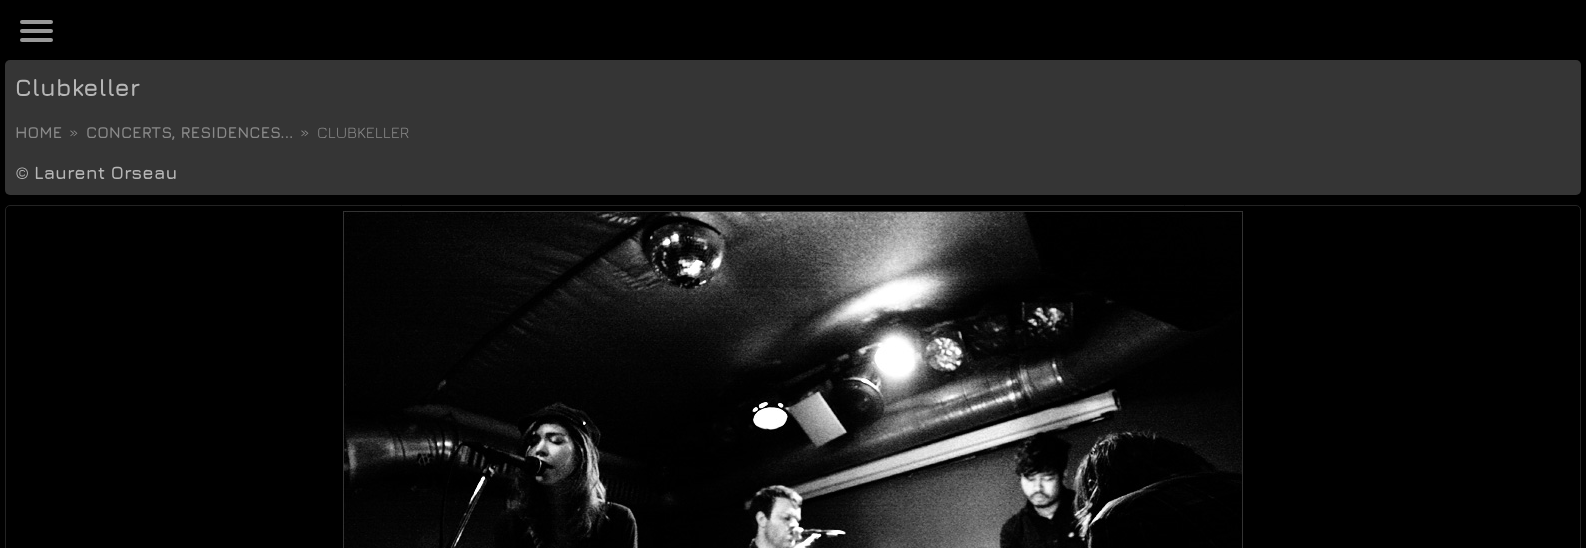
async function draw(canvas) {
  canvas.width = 1586
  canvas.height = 548
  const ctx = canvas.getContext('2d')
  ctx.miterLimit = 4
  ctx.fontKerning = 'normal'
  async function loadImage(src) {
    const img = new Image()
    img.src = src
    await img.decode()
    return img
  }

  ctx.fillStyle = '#000'
  ctx.fillRect(0, 0, 1586, 548)
  ctx.fillStyle = '#999'
  ctx.beginPath()
  ctx.roundRect(20, 20, 33, 4, 2)
  ctx.fill()
  ctx.beginPath()
  ctx.roundRect(20, 29, 33, 4, 2)
  ctx.fill()
  ctx.beginPath()
  ctx.roundRect(20, 38, 33, 4, 2)
  ctx.fill()
  ctx.fillStyle = '#353535'
  ctx.beginPath()
  ctx.roundRect(5, 60, 1576, 135, 5)
  ctx.fill()
  ctx.font = 'bold 24px Jura'
  ctx.fillStyle = '#b6b6b6'
  ctx.fillText('Clubkeller', 15, 96)
  ctx.font = 'bold 16px Jura'
  ctx.fillStyle = '#898989'
  ctx.fillText('HOME', 15, 138)
  ctx.font = '16px Jura'
  ctx.fillText('»', 69, 138)
  ctx.font = 'bold 16px Jura'
  ctx.fillText('CONCERTS, RESIDENCES...', 86, 138)
  ctx.font = '16px Jura'
  ctx.fillText('»', 300, 138)
  ctx.fillText('CLUBKELLER', 317, 138)
  ctx.font = '18px Jura'
  ctx.fillStyle = '#b6b6b6'
  ctx.fillText('©', 15, 179)
  ctx.font = 'bold 18px Jura'
  ctx.fillText('Laurent Orseau', 34, 179)
  ctx.beginPath()
  ctx.moveTo(10, 205.5)
  ctx.lineTo(1576, 205.5)
  ctx.bezierCurveTo(1578.5, 205.5, 1580.5, 207.5, 1580.5, 210)
  ctx.lineTo(1580.5, 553.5)
  ctx.lineTo(5.5, 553.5)
  ctx.lineTo(5.5, 210)
  ctx.bezierCurveTo(5.5, 207.5, 7.5, 205.5, 10, 205.5)
  ctx.closePath()
  ctx.strokeStyle = '#232323'
  ctx.stroke()
  ctx.drawImage(await loadImage('image0.png'), 343, 211, 900, 337)
}

draw(document.querySelector('canvas'))
